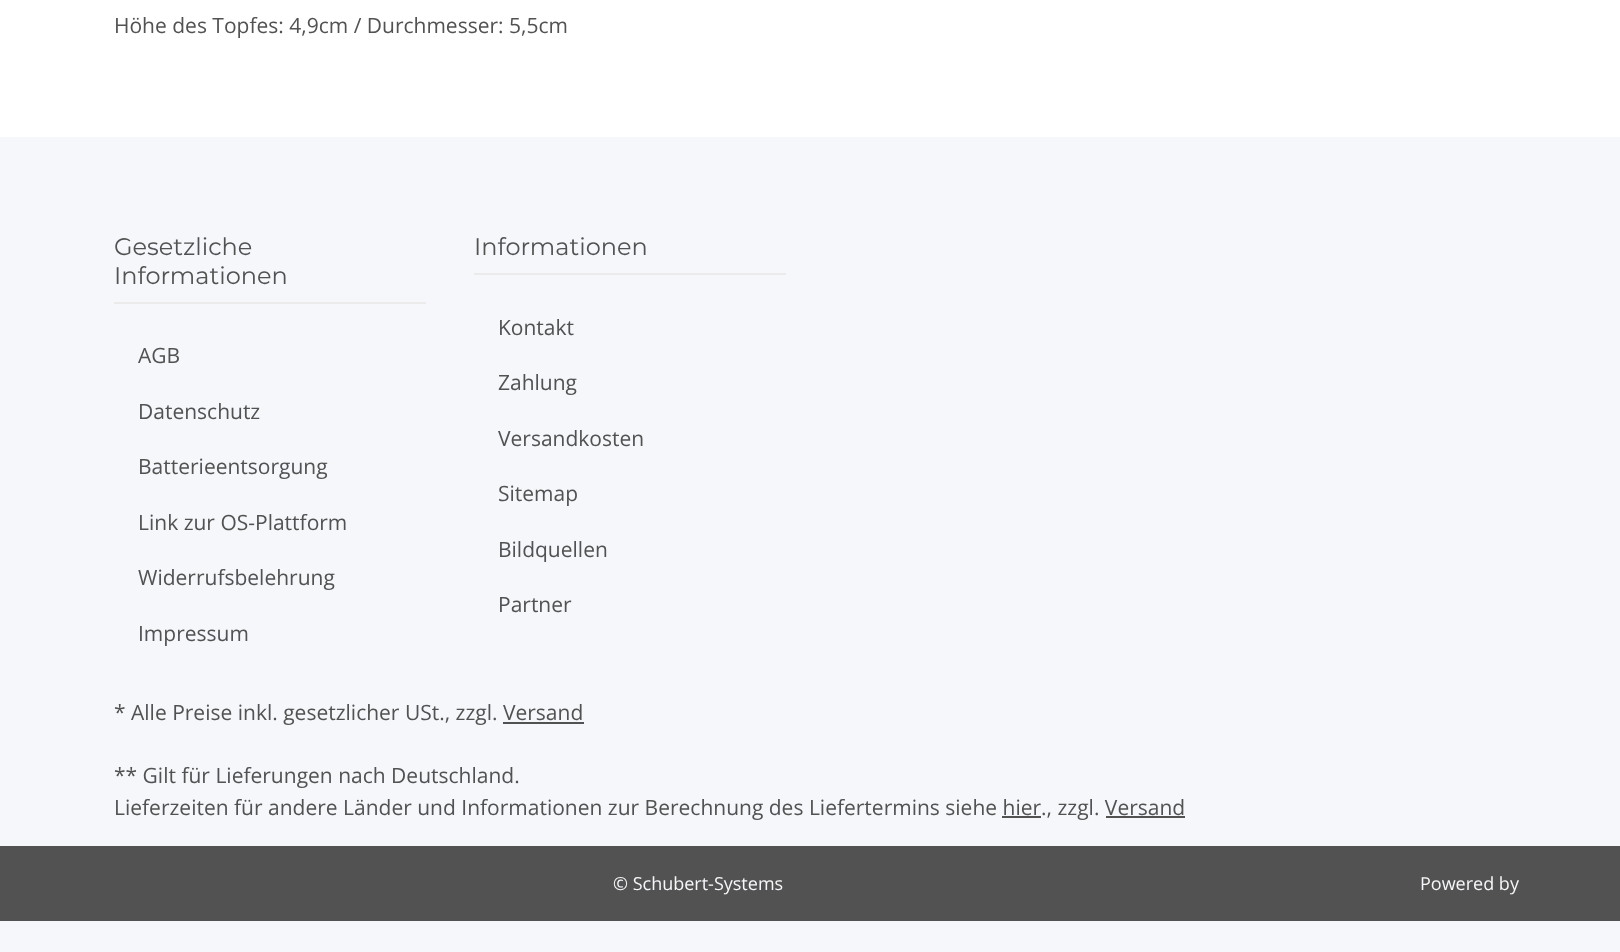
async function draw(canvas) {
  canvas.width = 1620
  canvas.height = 952
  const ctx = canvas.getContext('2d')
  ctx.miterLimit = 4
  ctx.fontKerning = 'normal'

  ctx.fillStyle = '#f5f7fa'
  ctx.fillRect(0, 0, 1620, 952)
  ctx.fillStyle = '#fff'
  ctx.fillRect(0, 0, 1620, 137)
  ctx.font = '21px Open Sans'
  ctx.fillStyle = '#525252'
  ctx.fillText('Höhe des Topfes: 4,9cm / Durchmesser: 5,5cm', 114, 33)
  ctx.fillStyle = '#ebebeb'
  ctx.fillRect(114, 302, 312, 2)
  ctx.font = '24px Montserrat'
  ctx.fillStyle = '#525252'
  ctx.fillText('Gesetzliche', 114, 255)
  ctx.fillText('Informationen', 114, 284)
  ctx.font = '21px Open Sans'
  ctx.fillText('AGB', 138, 363)
  ctx.fillText('Datenschutz', 138, 419)
  ctx.fillText('Batterieentsorgung', 138, 474)
  ctx.fillText('Link zur OS-Plattform', 138, 530)
  ctx.fillText('Widerrufsbelehrung', 138, 585)
  ctx.fillText('Impressum', 138, 641)
  ctx.fillStyle = '#ebebeb'
  ctx.fillRect(474, 273, 312, 2)
  ctx.font = '24px Montserrat'
  ctx.fillStyle = '#525252'
  ctx.fillText('Informationen', 474, 255)
  ctx.font = '21px Open Sans'
  ctx.fillText('Kontakt', 498, 335)
  ctx.fillText('Zahlung', 498, 390)
  ctx.fillText('Versandkosten', 498, 446)
  ctx.fillText('Sitemap', 498, 501)
  ctx.fillText('Bildquellen', 498, 557)
  ctx.fillText('Partner', 498, 612)
  ctx.fillText('* Alle Preise inkl. gesetzlicher USt., zzgl. Versand', 114, 720)
  ctx.fillRect(503, 722, 81, 2)
  ctx.fillText('** Gilt für Lieferungen nach Deutschland.', 114, 783)
  ctx.fillText('Lieferzeiten für andere Länder und Informationen zur Berechnung des Liefertermins siehe hier., zzgl. Versand', 114, 815)
  ctx.fillRect(1002, 816, 39, 2)
  ctx.fillRect(1106, 816, 79, 2)
  ctx.fillRect(0, 846, 1620, 75)
  ctx.font = '18px Open Sans'
  ctx.fillStyle = '#f5f7fa'
  ctx.fillText('© Schubert-Systems', 613, 890)
  ctx.fillText('Powered by', 1420, 890)
}

draw(document.querySelector('canvas'))
